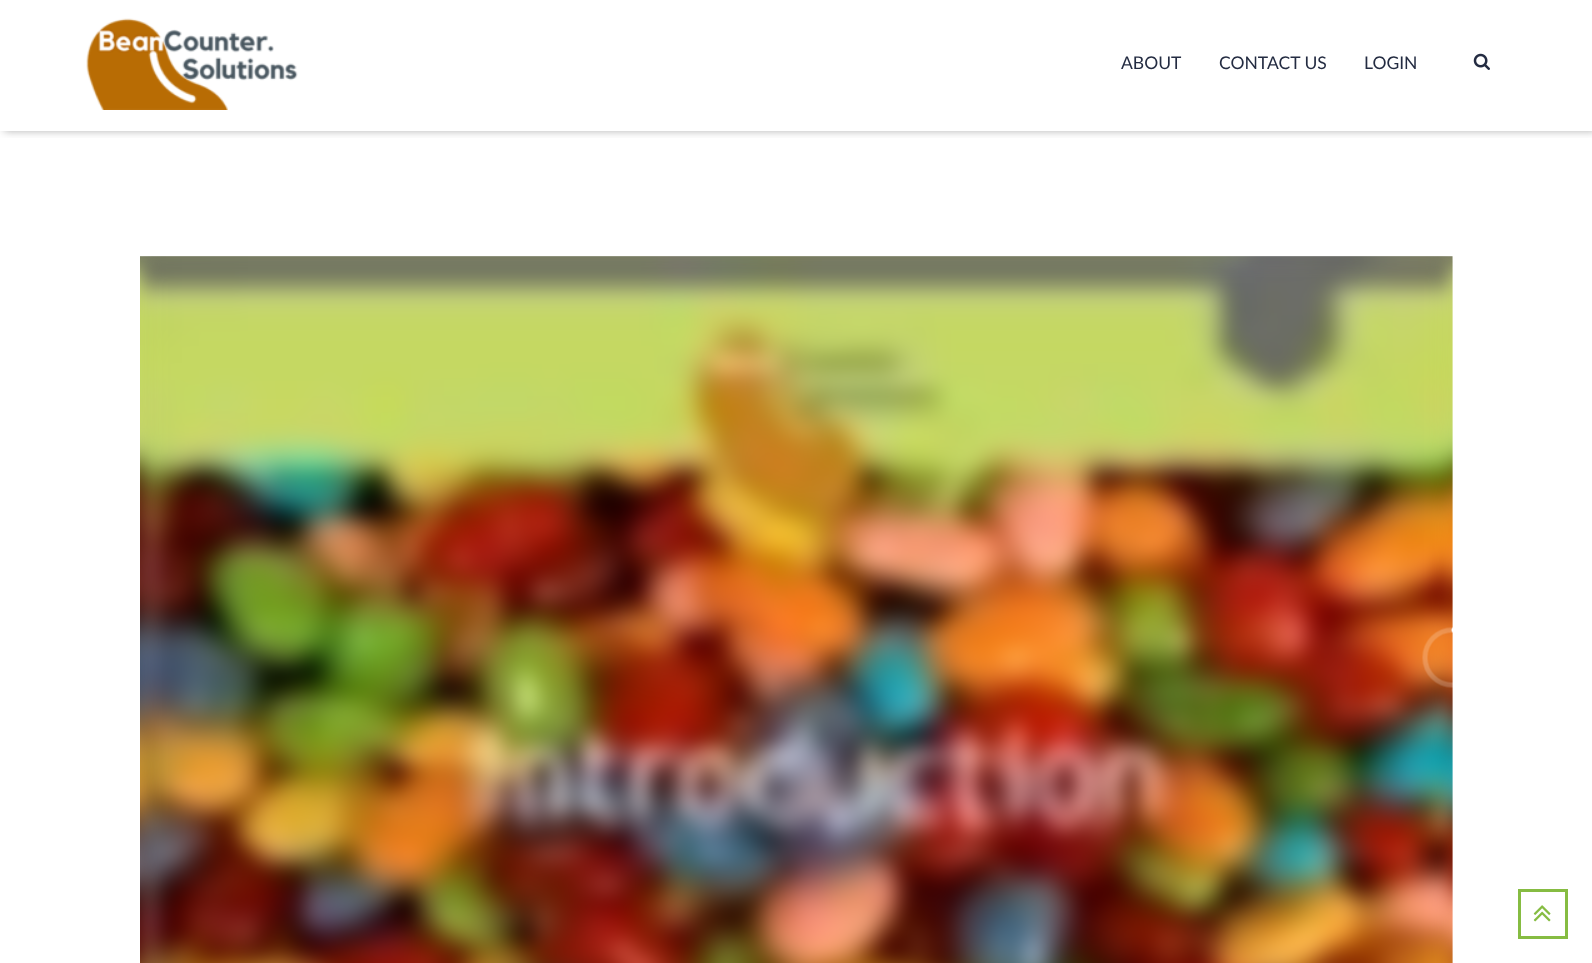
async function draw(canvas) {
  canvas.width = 1592
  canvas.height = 963
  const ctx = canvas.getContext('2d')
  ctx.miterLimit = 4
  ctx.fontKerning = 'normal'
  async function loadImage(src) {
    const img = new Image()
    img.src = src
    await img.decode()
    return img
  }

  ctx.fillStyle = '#fff'
  ctx.fillRect(0, 0, 1592, 963)
  ctx.save()
  ctx.beginPath()
  ctx.rect(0, 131, 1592, 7)
  ctx.clip()
  ctx.fillStyle = '#0000004d'
  ctx.filter = 'blur(4.5px)'
  ctx.beginPath()
  ctx.rect(4, 0, 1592, 131)
  ctx.fill()
  ctx.filter = 'none'
  ctx.restore()
  ctx.drawImage(await loadImage('image0.png'), 86, 18, 212, 92)
  ctx.font = '17.5px Lato'
  ctx.fillStyle = '#242c42'
  ctx.fillText('ABOUT', 1121, 69)
  ctx.fillText('CONTACT US', 1219, 69)
  ctx.fillText('LOGIN', 1364, 69)
  ctx.drawImage(await loadImage('image1.png'), 1473, 53, 17, 17)
  ctx.drawImage(await loadImage('image2.png'), 140, 256, 1313, 707)
  ctx.strokeStyle = '#86bc42'
  ctx.lineWidth = 3
  ctx.strokeRect(1519.5, 890.5, 47, 47)
  ctx.drawImage(await loadImage('image3.png'), 1533, 905, 18, 17)
}

draw(document.querySelector('canvas'))
